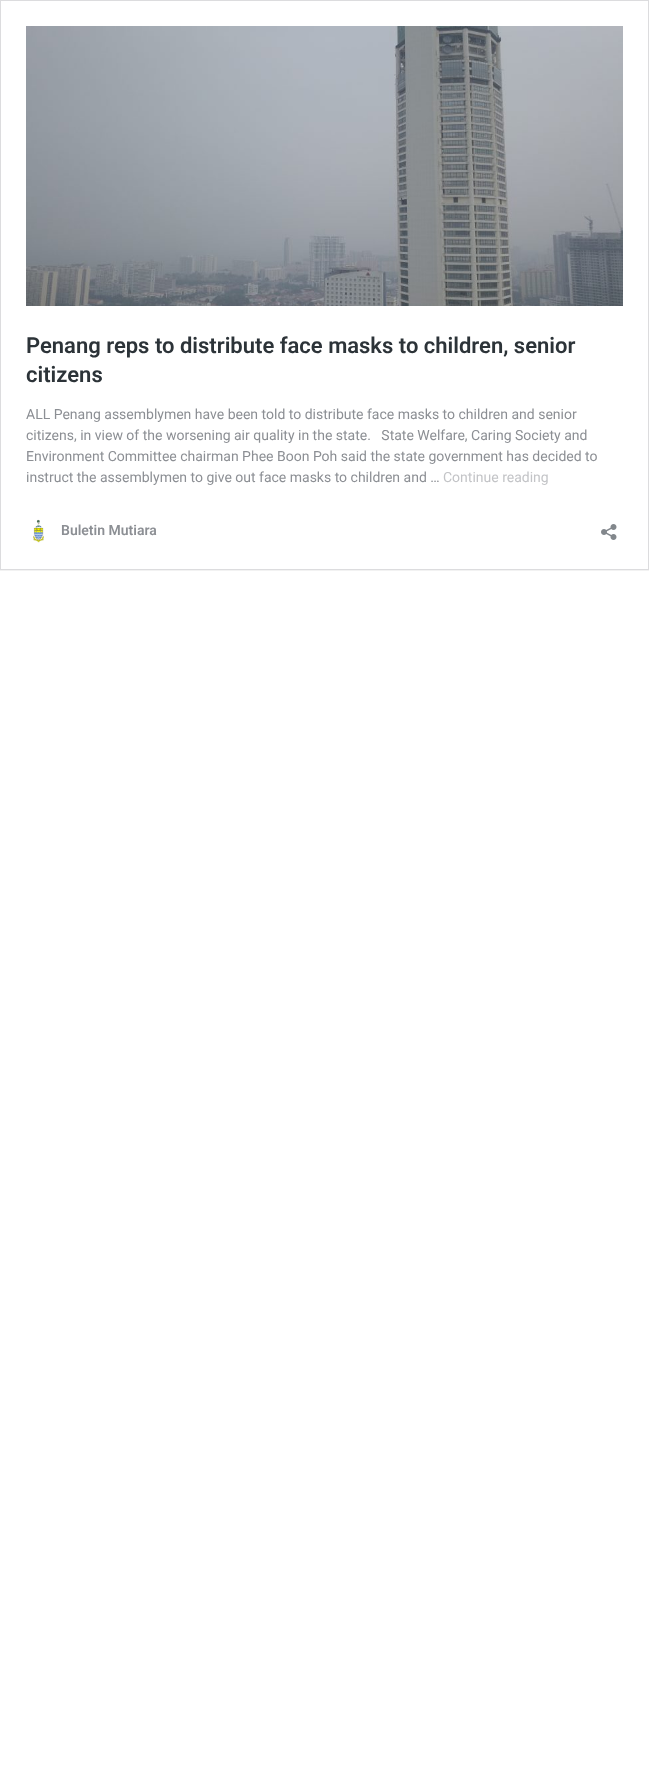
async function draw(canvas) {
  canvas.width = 649
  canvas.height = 1774
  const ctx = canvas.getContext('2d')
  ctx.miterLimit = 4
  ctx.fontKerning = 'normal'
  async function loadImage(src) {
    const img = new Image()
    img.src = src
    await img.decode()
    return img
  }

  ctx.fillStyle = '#fff'
  ctx.fillRect(0, 0, 649, 1774)
  ctx.save()
  ctx.beginPath()
  ctx.rect(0, 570, 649, 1)
  ctx.clip()
  ctx.fillStyle = '#0000000d'
  ctx.filter = 'blur(0.5px)'
  ctx.beginPath()
  ctx.rect(0, 1, 649, 570)
  ctx.fill()
  ctx.filter = 'none'
  ctx.restore()
  ctx.strokeStyle = '#dcdcde'
  ctx.strokeRect(0.5, 0.5, 648, 569)
  ctx.drawImage(await loadImage('image0.png'), 26, 26, 597, 280)
  ctx.font = '600 22px Roboto'
  ctx.fillStyle = '#2c3338'
  ctx.fillText('Penang reps to distribute face masks to children, senior', 26, 353)
  ctx.fillText('citizens', 26, 382)
  ctx.font = '14px Roboto'
  ctx.fillStyle = '#8c8f94'
  ctx.fillText('ALL Penang assemblymen have been told to distribute face masks to children and senior', 26, 419)
  ctx.fillText('citizens, in view of the worsening air quality in the state.   State Welfare, Caring Society and', 26, 440)
  ctx.fillText('Environment Committee chairman Phee Boon Poh said the state government has decided to', 26, 461)
  ctx.fillText('instruct the assemblymen to give out face masks to children and …', 26, 482)
  ctx.fillStyle = '#c3c4c7'
  ctx.fillText('Continue reading', 443, 482)
  ctx.drawImage(await loadImage('image1.png'), 33, 519, 11, 24)
  ctx.font = '600 14px Roboto'
  ctx.fillStyle = '#8c8f94'
  ctx.fillText('Buletin Mutiara', 61, 535)
  ctx.drawImage(await loadImage('image2.png'), 601, 524, 16, 16)
}

draw(document.querySelector('canvas'))
